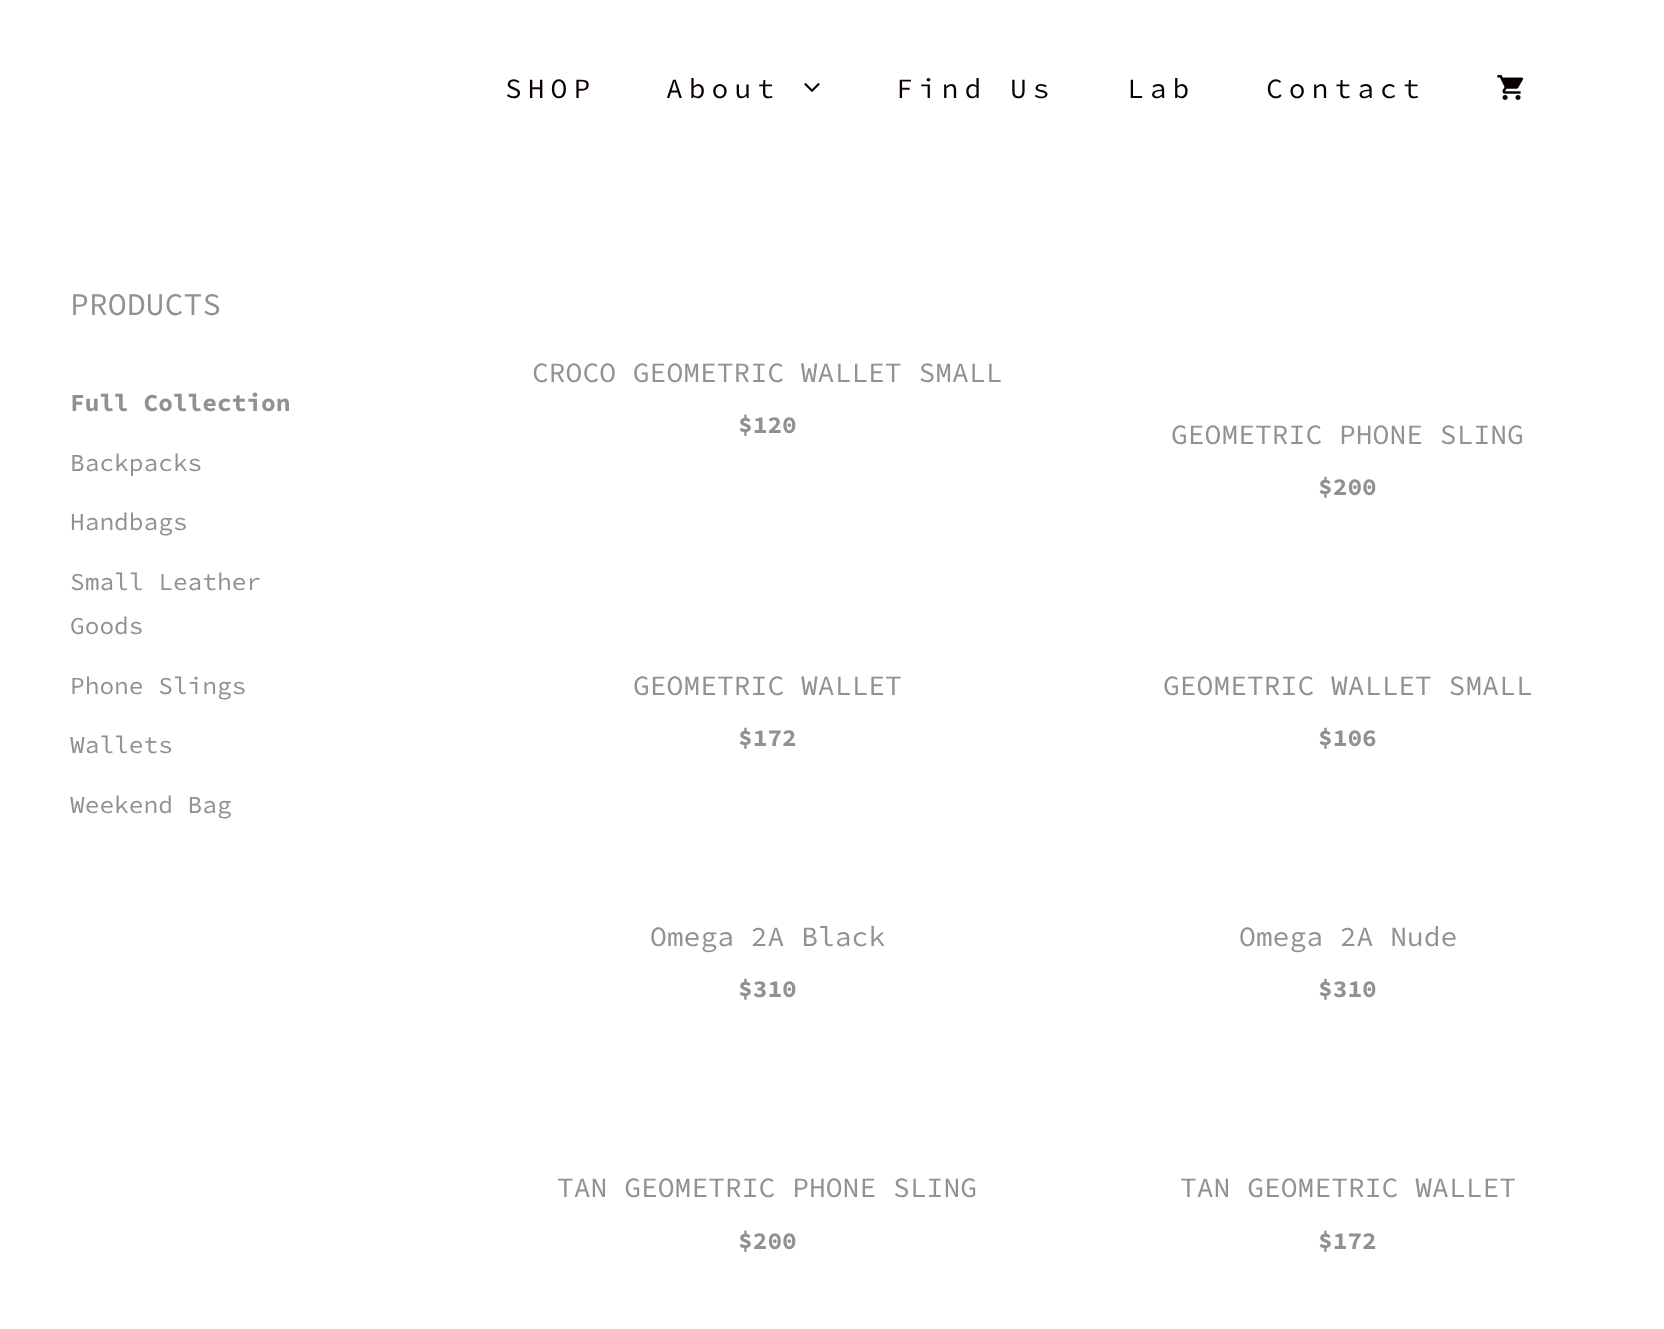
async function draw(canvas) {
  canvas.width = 1664
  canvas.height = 1329
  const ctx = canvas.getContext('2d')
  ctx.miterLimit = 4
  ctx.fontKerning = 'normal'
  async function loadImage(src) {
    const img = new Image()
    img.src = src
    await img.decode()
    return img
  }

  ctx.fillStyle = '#fff'
  ctx.fillRect(0, 0, 1664, 1329)
  ctx.letterSpacing = '6px'
  ctx.font = '28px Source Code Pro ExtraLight'
  ctx.fillStyle = '#0a0002'
  ctx.fillText('SHOP', 505, 98)
  ctx.fillText('About', 666, 98)
  ctx.drawImage(await loadImage('image0.png'), 804, 83, 16, 9)
  ctx.fillText('Find Us', 896, 98)
  ctx.fillText('Lab', 1127, 98)
  ctx.fillText('Contact', 1266, 98)
  ctx.drawImage(await loadImage('image1.png'), 1497, 75, 27, 25)
  ctx.letterSpacing = '0px'
  ctx.font = '31.5px Source Code Pro ExtraLight'
  ctx.fillStyle = '#919191'
  ctx.fillText('PRODUCTS', 70, 315)
  ctx.font = 'bold 24.5px Source Code Pro ExtraLight'
  ctx.fillText('Full Collection', 70, 411)
  ctx.font = '24.5px Source Code Pro ExtraLight'
  ctx.fillText('Backpacks', 70, 471)
  ctx.fillText('Handbags', 70, 530)
  ctx.fillText('Small Leather', 70, 590)
  ctx.fillText('Goods', 70, 634)
  ctx.fillText('Phone Slings', 70, 694)
  ctx.fillText('Wallets', 70, 753)
  ctx.fillText('Weekend Bag', 70, 813)
  ctx.font = '28px Source Code Pro ExtraLight'
  ctx.fillText('CROCO GEOMETRIC WALLET SMALL', 532, 382)
  ctx.font = 'bold 24.5px Source Code Pro ExtraLight'
  ctx.fillText('$120', 738, 433)
  ctx.font = '28px Source Code Pro ExtraLight'
  ctx.fillText('GEOMETRIC PHONE SLING', 1171, 444)
  ctx.font = 'bold 24.5px Source Code Pro ExtraLight'
  ctx.fillText('$200', 1318, 495)
  ctx.font = '28px Source Code Pro ExtraLight'
  ctx.fillText('GEOMETRIC WALLET', 633, 695)
  ctx.font = 'bold 24.5px Source Code Pro ExtraLight'
  ctx.fillText('$172', 738, 746)
  ctx.font = '28px Source Code Pro ExtraLight'
  ctx.fillText('GEOMETRIC WALLET SMALL', 1163, 695)
  ctx.font = 'bold 24.5px Source Code Pro ExtraLight'
  ctx.fillText('$106', 1318, 746)
  ctx.font = '28px Source Code Pro ExtraLight'
  ctx.fillText('Omega 2A Black', 650, 946)
  ctx.font = 'bold 24.5px Source Code Pro ExtraLight'
  ctx.fillText('$310', 738, 997)
  ctx.font = '28px Source Code Pro ExtraLight'
  ctx.fillText('Omega 2A Nude', 1239, 946)
  ctx.font = 'bold 24.5px Source Code Pro ExtraLight'
  ctx.fillText('$310', 1318, 997)
  ctx.font = '28px Source Code Pro ExtraLight'
  ctx.fillText('TAN GEOMETRIC PHONE SLING', 557, 1197)
  ctx.font = 'bold 24.5px Source Code Pro ExtraLight'
  ctx.fillText('$200', 738, 1249)
  ctx.font = '28px Source Code Pro ExtraLight'
  ctx.fillText('TAN GEOMETRIC WALLET', 1180, 1197)
  ctx.font = 'bold 24.5px Source Code Pro ExtraLight'
  ctx.fillText('$172', 1318, 1249)
}

draw(document.querySelector('canvas'))
